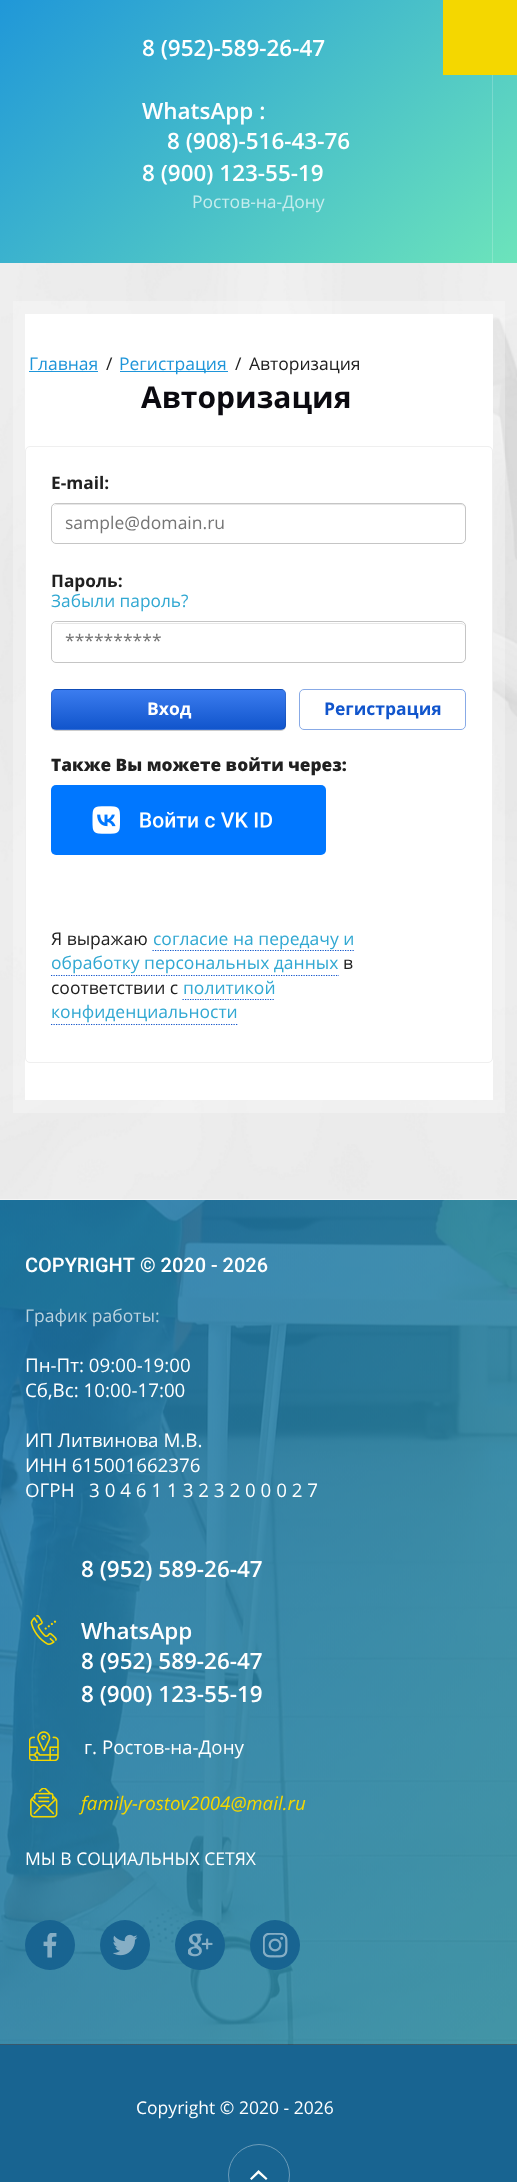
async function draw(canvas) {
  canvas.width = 517
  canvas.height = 2182
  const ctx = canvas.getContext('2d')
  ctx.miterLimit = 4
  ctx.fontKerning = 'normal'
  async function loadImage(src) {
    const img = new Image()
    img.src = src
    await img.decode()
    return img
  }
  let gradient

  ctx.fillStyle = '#fff'
  ctx.fillRect(0, 0, 517, 2182)
  ctx.drawImage(await loadImage('image0.png'), 0, 0, 517, 263)
  ctx.fillStyle = '#ffffff33'
  ctx.beginPath()
  ctx.moveTo(25, 264)
  ctx.lineTo(25, 265)
  ctx.lineTo(493, 265)
  ctx.lineTo(493, -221)
  ctx.lineTo(492, -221)
  ctx.lineTo(492, 264)
  ctx.closePath()
  ctx.fill()
  ctx.font = '600 22.5px Open Sans'
  ctx.fillStyle = '#fff'
  ctx.fillText('8 (952)-589-26-47', 142, 56)
  ctx.fillText('WhatsApp :', 142, 119)
  ctx.fillText('8 (908)-516-43-76', 167, 149)
  ctx.fillText('8 (900) 123-55-19', 142, 181)
  ctx.font = '17.5px Open Sans'
  ctx.fillStyle = '#c6eced'
  ctx.fillText('Ростов-на-Дону', 192, 208)
  ctx.fillStyle = '#f4d700'
  ctx.fillRect(443, 0, 74, 75)
  ctx.drawImage(await loadImage('image1.png'), 0, 263, 517, 937)
  ctx.strokeStyle = '#ffffff47'
  ctx.lineWidth = 13
  ctx.strokeRect(19.5, 307.5, 479, 799)
  ctx.fillStyle = '#fff'
  ctx.fillRect(25, 314, 468, 786)
  ctx.fillStyle = '#1e95d9'
  ctx.fillText('Главная', 29, 370)
  ctx.fillRect(29, 371, 69, 1)
  ctx.fillStyle = '#202020'
  ctx.fillText('/', 106, 370)
  ctx.fillStyle = '#1e95d9'
  ctx.fillRect(120, 371, 108, 1)
  ctx.fillText('Регистрация', 119, 370)
  ctx.fillStyle = '#202020'
  ctx.fillText('/', 235, 370)
  ctx.fillText('Авторизация', 249, 370)
  ctx.font = 'bold 30px Open Sans'
  ctx.fillStyle = '#0b0a10'
  ctx.fillText('Авторизация', 141, 408)
  ctx.beginPath()
  ctx.roundRect(25.5, 446.5, 467, 616, 4.5)
  ctx.strokeStyle = '#efefef'
  ctx.lineWidth = 1
  ctx.stroke()
  ctx.font = 'bold 17.3px Open Sans'
  ctx.fillStyle = '#202020'
  ctx.fillText('E-mail:', 51, 489)
  ctx.fillStyle = '#e6e6e6'
  ctx.beginPath()
  ctx.moveTo(56, 505)
  ctx.lineTo(461, 505)
  ctx.bezierCurveTo(463, 505, 465, 507, 465, 509)
  ctx.lineTo(465, 508)
  ctx.bezierCurveTo(465, 506, 463, 504, 461, 504)
  ctx.lineTo(57, 504)
  ctx.bezierCurveTo(56, 504, 54, 505, 54, 506)
  ctx.closePath()
  ctx.fill()
  ctx.beginPath()
  ctx.roundRect(51.5, 503.5, 414, 40, 4.5)
  ctx.strokeStyle = '#c5c5c5'
  ctx.stroke()
  ctx.font = '17.5px Open Sans'
  ctx.fillStyle = '#757575'
  ctx.fillText('sample@domain.ru', 65, 529)
  ctx.font = 'bold 17.3px Open Sans'
  ctx.fillStyle = '#202020'
  ctx.fillText('Пароль:', 51, 587)
  ctx.font = '17.3px Open Sans'
  ctx.fillStyle = '#31a8d2'
  ctx.fillText('Забыли пароль?', 51, 607)
  ctx.fillStyle = '#e6e6e6'
  ctx.beginPath()
  ctx.moveTo(56, 624)
  ctx.lineTo(461, 624)
  ctx.bezierCurveTo(463, 624, 465, 625, 465, 628)
  ctx.lineTo(465, 627)
  ctx.bezierCurveTo(465, 625, 463, 623, 461, 623)
  ctx.lineTo(57, 623)
  ctx.bezierCurveTo(56, 623, 55, 624, 54, 624)
  ctx.closePath()
  ctx.fill()
  ctx.beginPath()
  ctx.roundRect(51.5, 621.5, 414, 41, 4.5)
  ctx.stroke()
  ctx.font = '17.5px Open Sans'
  ctx.fillStyle = '#757575'
  ctx.fillText('**********', 65, 647)
  ctx.fillStyle = '#00000033'
  ctx.filter = 'blur(0.5px)'
  ctx.beginPath()
  ctx.roundRect(51, 690, 235, 41, 5)
  ctx.fill()
  ctx.filter = 'none'
  ctx.save()
  ctx.beginPath()
  ctx.roundRect(51, 689, 235, 41, 5)
  ctx.clip()
  gradient = ctx.createLinearGradient(169, 651, 169, 690)
  gradient.addColorStop(0, '#3b7cef')
  gradient.addColorStop(1, '#15c')
  ctx.fillStyle = gradient
  ctx.fillRect(51, 689, 235, 1)
  gradient = ctx.createLinearGradient(169, 690, 169, 729)
  gradient.addColorStop(0, '#3b7cef')
  gradient.addColorStop(1, '#15c')
  ctx.fillStyle = gradient
  ctx.fillRect(51, 690, 235, 39)
  gradient = ctx.createLinearGradient(169, 729, 169, 768)
  gradient.addColorStop(0, '#3b7cef')
  gradient.addColorStop(1, '#15c')
  ctx.fillStyle = gradient
  ctx.fillRect(51, 729, 235, 1)
  ctx.restore()
  ctx.beginPath()
  ctx.roundRect(51.5, 689.5, 234, 40, 4.5)
  ctx.strokeStyle = '#0000001a'
  ctx.stroke()
  ctx.font = 'bold 17.5px Open Sans'
  ctx.fillStyle = '#fff'
  ctx.fillText('Вход', 147, 715)
  ctx.beginPath()
  ctx.roundRect(299.5, 689.5, 166, 40, 4.5)
  ctx.strokeStyle = '#88aae6'
  ctx.stroke()
  ctx.fillStyle = '#15c'
  ctx.fillText('Регистрация', 324, 715)
  ctx.font = '800 17.3px Open Sans'
  ctx.fillStyle = '#202020'
  ctx.fillText('Также Вы можете войти через:', 51, 771)
  ctx.fillStyle = '#07f'
  ctx.beginPath()
  ctx.roundRect(51, 785, 275, 70, 5)
  ctx.fill()
  ctx.drawImage(await loadImage('image2.png'), 92, 806, 180, 28)
  ctx.font = '17.5px Open Sans'
  ctx.fillStyle = '#202020'
  ctx.fillText('Я выражаю', 51, 945)
  ctx.beginPath()
  ctx.moveTo(152.5, 950.5)
  ctx.lineTo(354, 950.5)
  ctx.strokeStyle = '#15c'
  ctx.lineWidth = 1.2
  ctx.setLineDash([1.25, 1.25])
  ctx.stroke()
  ctx.fillStyle = '#31a8d2'
  ctx.fillText('согласие на передачу и', 153, 945)
  ctx.fillText('обработку персональных данных', 51, 969)
  ctx.beginPath()
  ctx.moveTo(51, 975.5)
  ctx.lineTo(339, 975.5)
  ctx.stroke()
  ctx.fillStyle = '#202020'
  ctx.fillText('в', 343, 969)
  ctx.fillText('соответствии с', 51, 994)
  ctx.fillStyle = '#31a8d2'
  ctx.fillText('политикой', 183, 994)
  ctx.beginPath()
  ctx.moveTo(182.5, 999.5)
  ctx.lineTo(275, 999.5)
  ctx.stroke()
  ctx.fillText('конфиденциальности', 51, 1018)
  ctx.beginPath()
  ctx.moveTo(51, 1024.5)
  ctx.lineTo(237.5, 1024.5)
  ctx.stroke()
  ctx.fillStyle = '#39272f'
  ctx.fillRect(0, 2044, 517, 1)
  ctx.drawImage(await loadImage('image3.png'), 0, 1200, 517, 845)
  ctx.font = '500 20px Roboto'
  ctx.fillStyle = '#fff'
  ctx.fillText('COPYRIGHT © 2020 - 2026', 25, 1272)
  ctx.font = '17.5px Open Sans'
  ctx.fillStyle = '#bbd3df'
  ctx.fillText('График работы:', 25, 1322)
  ctx.font = '18.75px Open Sans'
  ctx.fillStyle = '#fff'
  ctx.fillText('Пн-Пт: 09:00-19:00', 25, 1372)
  ctx.fillText('Сб,Вс: 10:00-17:00', 25, 1397)
  ctx.fillText('ИП Литвинова М.В.', 25, 1447)
  ctx.fillText('ИНН 615001662376', 25, 1472)
  ctx.fillText('ОГРН   3 0 4 6 1 1 3 2 3 2 0 0 0 2 7', 25, 1497)
  ctx.drawImage(await loadImage('image4.png'), 30, 1615, 27, 30)
  ctx.font = '600 22.5px Open Sans'
  ctx.fillText('8 (952) 589-26-47', 81, 1577)
  ctx.fillText('WhatsApp', 81, 1639)
  ctx.fillText('8 (952) 589-26-47', 81, 1669)
  ctx.fillText('8 (900) 123-55-19', 81, 1702)
  ctx.drawImage(await loadImage('image5.png'), 29, 1731, 30, 30)
  ctx.font = '18.75px Open Sans'
  ctx.fillText('г. Ростов-на-Дону', 84, 1754)
  ctx.drawImage(await loadImage('image6.png'), 30, 1788, 28, 30)
  ctx.font = 'italic 18.75px Open Sans'
  ctx.fillStyle = '#f4d700'
  ctx.fillText('family-rostov2004@mail.ru', 81, 1810)
  ctx.font = '17.5px Open Sans'
  ctx.fillStyle = '#fff'
  ctx.fillText('МЫ В СОЦИАЛЬНЫХ СЕТЯХ', 25, 1865)
  ctx.fillStyle = '#186491'
  ctx.beginPath()
  ctx.arc(50, 1945, 25, 0, 2 * Math.PI)
  ctx.fill()
  ctx.drawImage(await loadImage('image7.png'), 43, 1933, 14, 25)
  ctx.beginPath()
  ctx.arc(125, 1945, 25, 0, 2 * Math.PI)
  ctx.fill()
  ctx.drawImage(await loadImage('image8.png'), 113, 1934, 25, 22)
  ctx.beginPath()
  ctx.arc(200, 1945, 25, 0, 2 * Math.PI)
  ctx.fill()
  ctx.drawImage(await loadImage('image9.png'), 188, 1933, 25, 24)
  ctx.beginPath()
  ctx.arc(275, 1945, 25, 0, 2 * Math.PI)
  ctx.fill()
  ctx.drawImage(await loadImage('image10.png'), 263, 1933, 25, 25)
  ctx.fillRect(0, 2045, 517, 137)
  ctx.fillStyle = '#fff'
  ctx.fillText('Copyright © 2020 - 2026', 136, 2114)
  ctx.beginPath()
  ctx.arc(259, 2175, 30.5, 0, 2 * Math.PI)
  ctx.strokeStyle = '#6b9cb9'
  ctx.lineWidth = 1
  ctx.setLineDash([])
  ctx.stroke()
  ctx.fillStyle = '#fffffc'
  ctx.beginPath()
  ctx.moveTo(267.5, 2178.5)
  ctx.lineTo(258.5, 2170)
  ctx.lineTo(250, 2178.5)
  ctx.lineTo(251.5, 2180)
  ctx.lineTo(258.5, 2173.5)
  ctx.lineTo(266, 2180)
  ctx.closePath()
  ctx.fill('evenodd')
}

draw(document.querySelector('canvas'))
